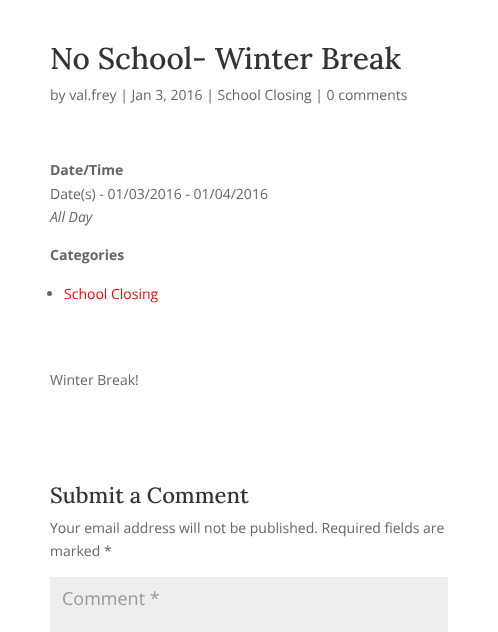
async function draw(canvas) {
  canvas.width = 498
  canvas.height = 632
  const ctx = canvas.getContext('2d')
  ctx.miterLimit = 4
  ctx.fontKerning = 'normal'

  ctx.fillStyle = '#fff'
  ctx.fillRect(0, 0, 498, 632)
  ctx.font = '500 30px Lora'
  ctx.fillStyle = '#333'
  ctx.fillText('No School- Winter Break', 50, 69)
  ctx.font = '14px Open Sans'
  ctx.fillStyle = '#666'
  ctx.fillText('by val.frey | Jan 3, 2016 | School Closing | 0 comments', 50, 100)
  ctx.font = 'bold 14px Open Sans'
  ctx.fillText('Date/Time', 50, 175)
  ctx.font = '14px Open Sans'
  ctx.fillText('Date(s) - 01/03/2016 - 01/04/2016', 50, 199)
  ctx.font = 'italic 14px Open Sans'
  ctx.fillText('All Day', 50, 222)
  ctx.font = 'bold 14px Open Sans'
  ctx.fillText('Categories', 50, 260)
  ctx.beginPath()
  ctx.arc(49.5, 293.5, 2.5, 0, 2 * Math.PI)
  ctx.fill()
  ctx.font = '14px Open Sans'
  ctx.fillStyle = '#ff0305'
  ctx.fillText('School Closing', 64, 299)
  ctx.fillStyle = '#666'
  ctx.fillText('Winter Break!', 50, 385)
  ctx.font = '500 22px Lora'
  ctx.fillStyle = '#333'
  ctx.fillText('Submit a Comment', 50, 503)
  ctx.font = '14px Open Sans'
  ctx.fillStyle = '#666'
  ctx.fillText('Your email address will not be published. Required fields are', 50, 533)
  ctx.fillText('marked *', 50, 556)
  ctx.fillStyle = '#eee'
  ctx.fillRect(50, 577, 398, 55)
  ctx.font = '18px Open Sans'
  ctx.fillStyle = '#999'
  ctx.fillText('Comment *', 62, 605)
}

draw(document.querySelector('canvas'))
